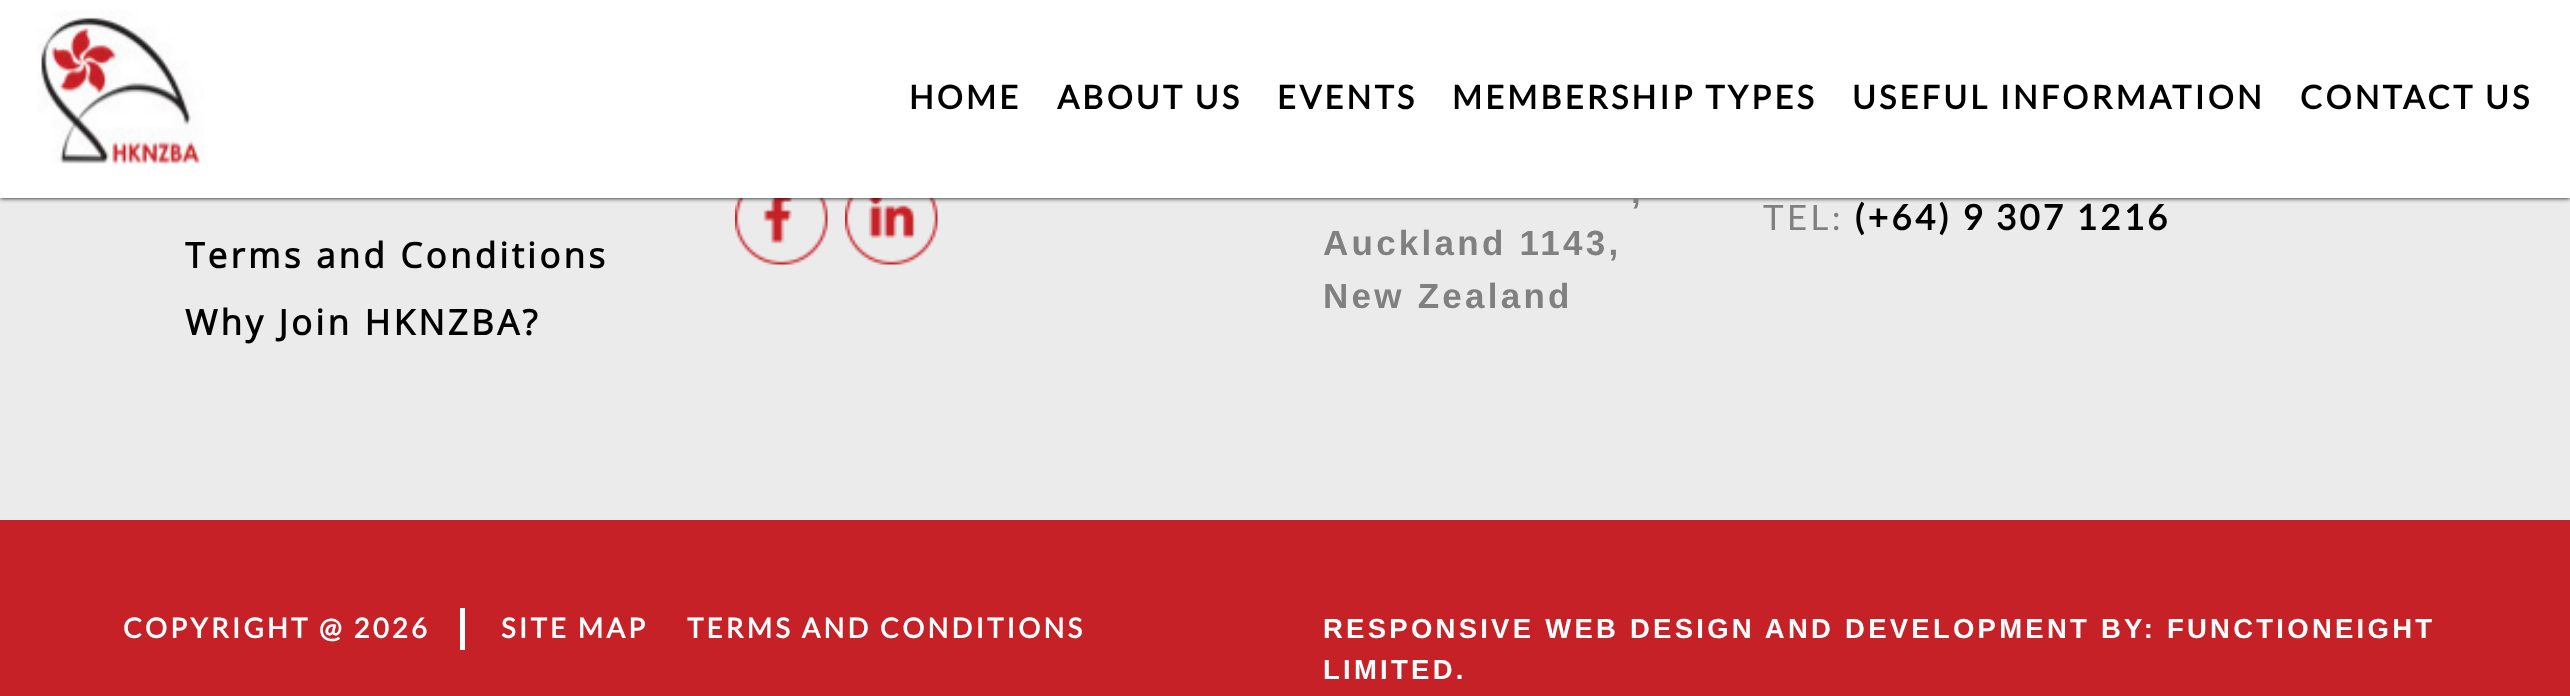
async function draw(canvas) {
  canvas.width = 2570
  canvas.height = 696
  const ctx = canvas.getContext('2d')
  ctx.miterLimit = 4
  ctx.fontKerning = 'normal'
  async function loadImage(src) {
    const img = new Image()
    img.src = src
    await img.decode()
    return img
  }

  ctx.fillStyle = '#ebebeb'
  ctx.fillRect(0, 0, 2570, 696)
  ctx.drawImage(await loadImage('image1.png'), 735, 198, 93, 67)
  ctx.drawImage(await loadImage('image2.png'), 845, 198, 93, 67)
  ctx.fillStyle = '#000'
  ctx.filter = 'blur(2.5px)'
  ctx.beginPath()
  ctx.rect(0, 0, 2570, 198)
  ctx.fill()
  ctx.filter = 'none'
  ctx.letterSpacing = '3.25px'
  ctx.font = 'bold 35px Liberation Sans'
  ctx.fillStyle = '#808080'
  ctx.fillText(',', 1631, 203)
  ctx.fillStyle = '#fff'
  ctx.fillRect(0, 0, 2570, 198)
  ctx.drawImage(await loadImage('image0.png'), 37, 10, 167, 154)
  ctx.font = 'bold 32.5px Lato'
  ctx.fillStyle = '#000'
  ctx.fillText('HOME', 909, 109)
  ctx.fillText('ABOUT US', 1057, 109)
  ctx.fillText('EVENTS', 1277, 109)
  ctx.fillText('MEMBERSHIP TYPES', 1452, 109)
  ctx.fillText('USEFUL INFORMATION', 1852, 109)
  ctx.fillText('CONTACT US', 2300, 109)
  ctx.font = 'bold 35px Open Sans'
  ctx.fillText('Terms and Conditions', 185, 268)
  ctx.fillText('Why Join HKNZBA?', 185, 335)
  ctx.font = 'bold 35px Liberation Sans'
  ctx.fillStyle = '#808080'
  ctx.fillText('Auckland 1143,', 1323, 255)
  ctx.fillText('New Zealand', 1323, 308)
  ctx.font = '35px Lato'
  ctx.fillText('TEL:', 1763, 230)
  ctx.font = 'bold 35px Lato'
  ctx.fillStyle = '#000'
  ctx.fillText('(+64) 9 307 1216', 1854, 230)
  ctx.fillStyle = '#c52127'
  ctx.fillRect(0, 520, 2570, 176)
  ctx.fillStyle = '#fff'
  ctx.fillRect(460, 608, 5, 42)
  ctx.font = 'bold 27.5px Lato'
  ctx.fillText('COPYRIGHT @ 2026', 123, 638)
  ctx.fillText('SITE MAP', 501, 638)
  ctx.fillText('TERMS AND CONDITIONS', 687, 638)
  ctx.font = 'bold 27.5px Liberation Sans'
  ctx.fillText('RESPONSIVE WEB DESIGN AND DEVELOPMENT BY: FUNCTIONEIGHT', 1323, 638)
  ctx.fillText('LIMITED.', 1323, 679)
}

draw(document.querySelector('canvas'))
